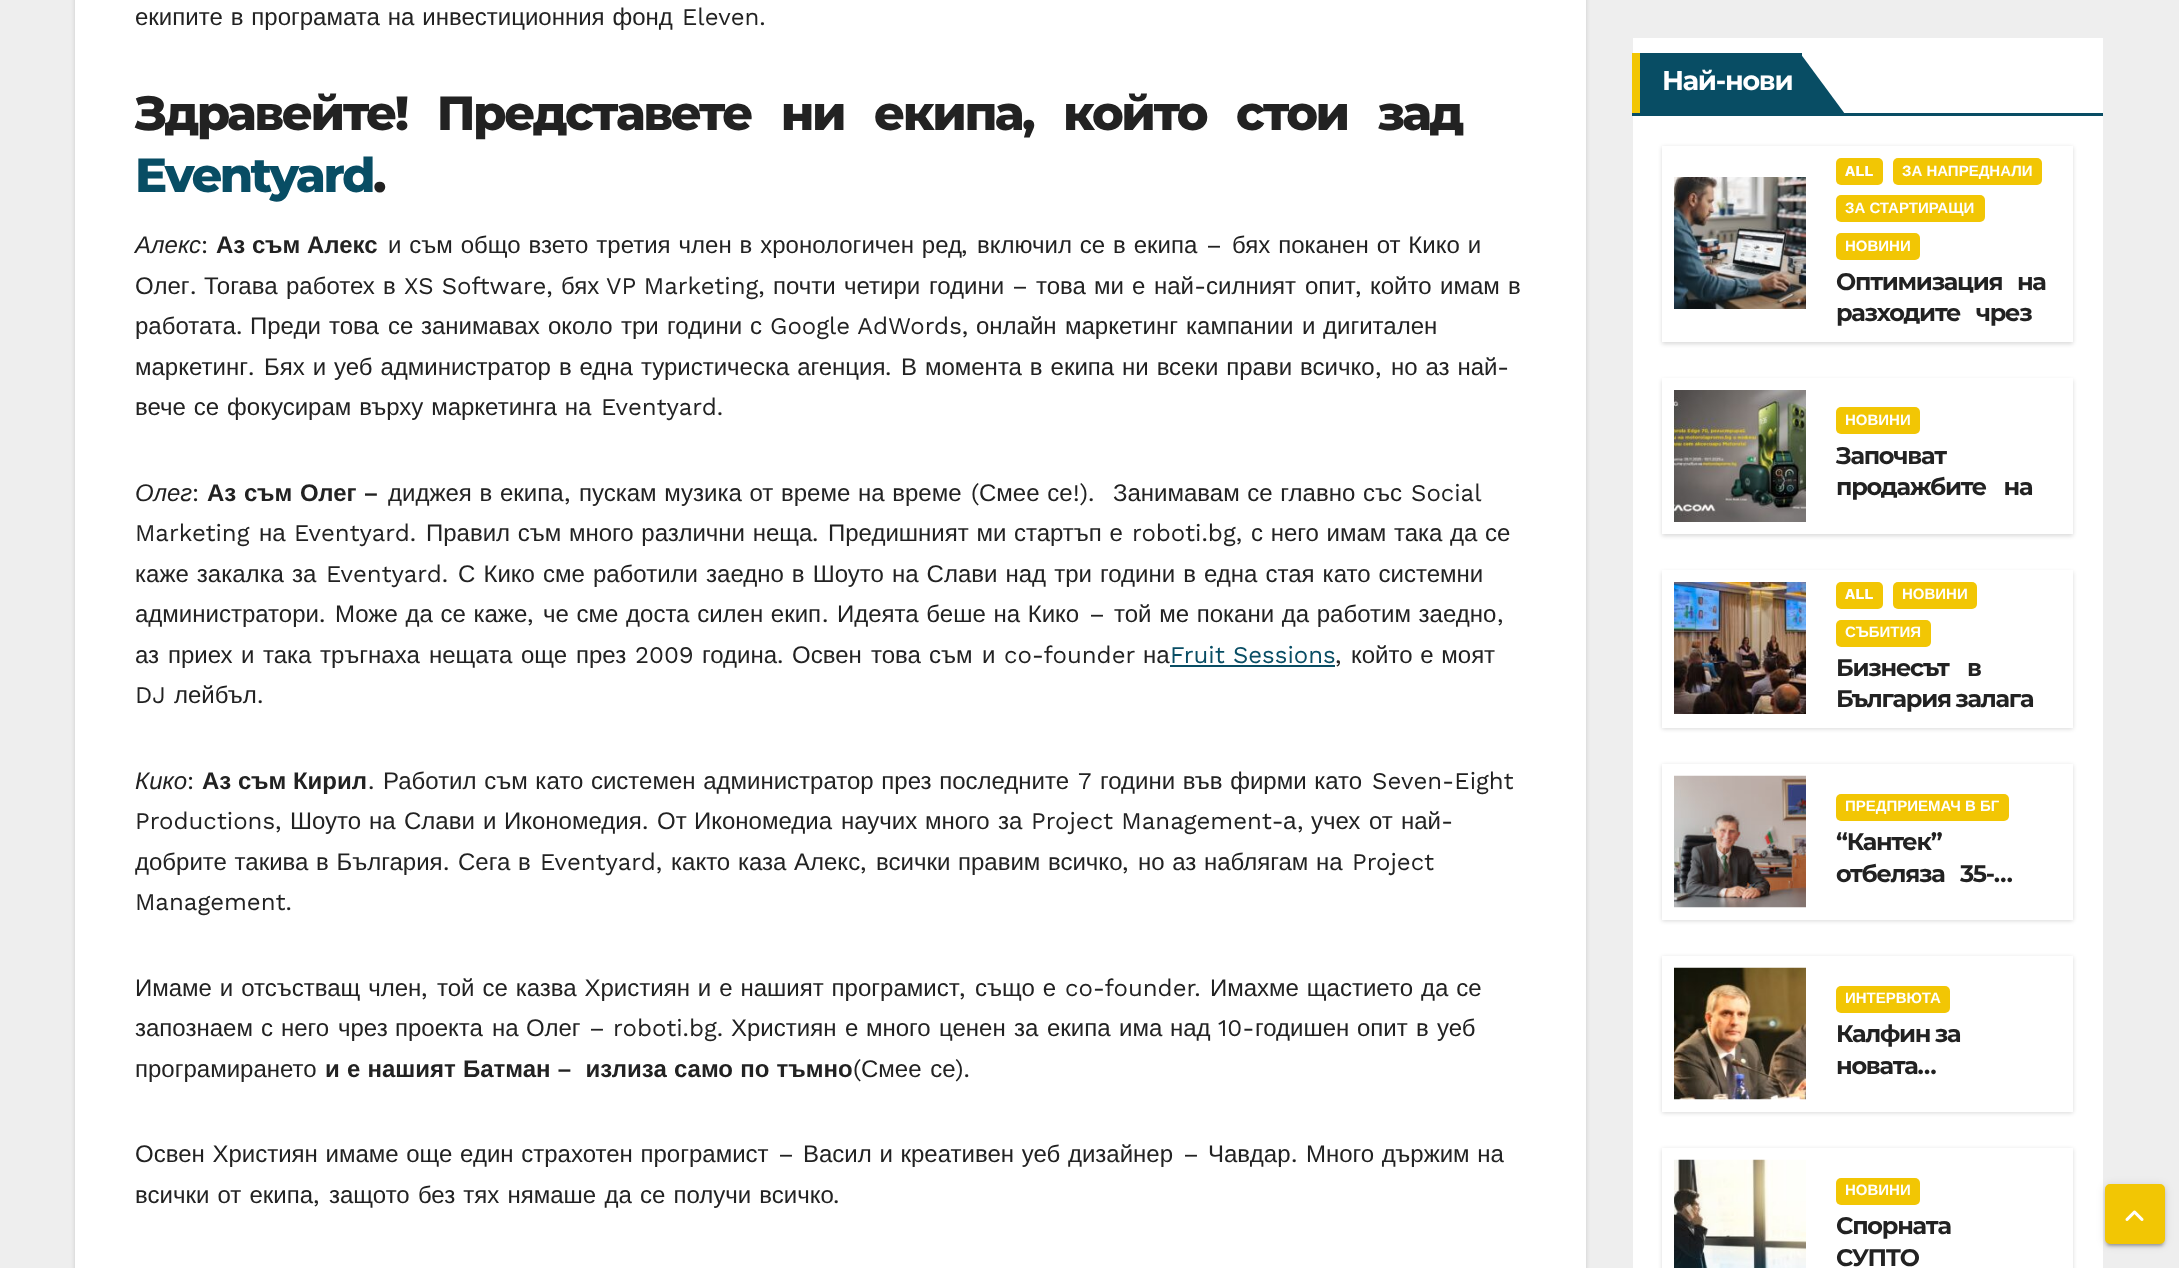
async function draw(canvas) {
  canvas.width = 2179
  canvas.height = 1268
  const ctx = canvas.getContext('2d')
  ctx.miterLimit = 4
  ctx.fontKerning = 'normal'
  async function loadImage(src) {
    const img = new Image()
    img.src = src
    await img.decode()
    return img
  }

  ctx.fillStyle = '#eee'
  ctx.fillRect(0, 0, 2179, 1268)
  ctx.fillStyle = '#00000026'
  ctx.filter = 'blur(2px)'
  ctx.beginPath()
  ctx.rect(75, -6, 1511, 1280)
  ctx.fill()
  ctx.filter = 'none'
  ctx.fillStyle = '#fff'
  ctx.fillRect(75, 0, 1511, 1268)
  ctx.wordSpacing = '1.25px'
  ctx.font = '24px Liberation Sans'
  ctx.fillStyle = '#222'
  ctx.fillText('екипите в програмата на инвестиционния фонд', 135, 25)
  ctx.wordSpacing = '0px'
  ctx.font = '24px Work Sans'
  ctx.fillText('Eleven.', 682, 25)
  ctx.letterSpacing = '-2.4px'
  ctx.wordSpacing = '18.25px'
  ctx.font = '800 48px Montserrat'
  ctx.fillText('Здравейте! Представете ни екипа, който стои зад', 135, 130)
  ctx.wordSpacing = '0px'
  ctx.fillStyle = '#084d64'
  ctx.fillText('Eventyard', 135, 192)
  ctx.fillStyle = '#222'
  ctx.fillText('.', 373, 192)
  ctx.letterSpacing = '0px'
  ctx.font = 'italic 24px Liberation Sans'
  ctx.fillText('Алекс', 135, 253)
  ctx.font = '24px Work Sans'
  ctx.fillText(':', 201, 253)
  ctx.font = 'bold 24px Liberation Sans'
  ctx.fillText('Аз съм Алекс', 216, 253)
  ctx.wordSpacing = '1.25px'
  ctx.font = '24px Liberation Sans'
  ctx.fillText('и съм общо взето третия член в хронологичен ред', 388, 253)
  ctx.fillText('включил се в екипа', 977, 253)
  ctx.wordSpacing = '0px'
  ctx.font = '24px Work Sans'
  ctx.fillText('–', 1206, 253)
  ctx.wordSpacing = '1.25px'
  ctx.font = '24px Liberation Sans'
  ctx.fillText('бях поканен от Кико и', 1232, 253)
  ctx.wordSpacing = '0px'
  ctx.font = '24px Work Sans'
  ctx.fillText(',', 961, 253)
  ctx.font = '24px Liberation Sans'
  ctx.fillText('Олег', 135, 294)
  ctx.fillText('Тогава', 204, 294)
  ctx.fillText('работех', 286, 294)
  ctx.fillText('в', 383, 294)
  ctx.font = '24px Work Sans'
  ctx.fillText('XS Software,', 404, 294)
  ctx.font = '24px Liberation Sans'
  ctx.fillText('бях', 561, 294)
  ctx.font = '24px Work Sans'
  ctx.fillText('VP Marketing,', 606, 294)
  ctx.font = '24px Liberation Sans'
  ctx.fillText('почти', 773, 294)
  ctx.fillText('четири', 844, 294)
  ctx.fillText('години', 929, 294)
  ctx.font = '24px Work Sans'
  ctx.fillText('–', 1012, 294)
  ctx.font = '24px Liberation Sans'
  ctx.fillText('това', 1036, 294)
  ctx.fillText('ми', 1094, 294)
  ctx.fillText('е', 1132, 294)
  ctx.fillText('най', 1154, 294)
  ctx.font = '24px Work Sans'
  ctx.fillText('-', 1194, 294)
  ctx.font = '24px Liberation Sans'
  ctx.fillText('силният', 1206, 294)
  ctx.fillText('опит', 1305, 294)
  ctx.fillText('който', 1370, 294)
  ctx.fillText('имам', 1440, 294)
  ctx.fillText('в', 1508, 294)
  ctx.font = '24px Work Sans'
  ctx.fillText('.', 190, 294)
  ctx.fillText(',', 1355, 294)
  ctx.font = '24px Liberation Sans'
  ctx.fillText('работата', 135, 334)
  ctx.font = '24px Work Sans'
  ctx.fillText('.', 236, 334)
  ctx.font = '24px Liberation Sans'
  ctx.fillText('Преди', 250, 334)
  ctx.fillText('това', 329, 334)
  ctx.fillText('се', 388, 334)
  ctx.fillText('занимавах', 421, 334)
  ctx.fillText('около', 548, 334)
  ctx.fillText('три', 621, 334)
  ctx.fillText('години', 667, 334)
  ctx.fillText('с', 750, 334)
  ctx.font = '24px Work Sans'
  ctx.fillText('Google AdWords,', 770, 334)
  ctx.font = '24px Liberation Sans'
  ctx.fillText('онлайн', 976, 334)
  ctx.fillText('маркетинг', 1065, 334)
  ctx.fillText('кампании', 1186, 334)
  ctx.fillText('и', 1302, 334)
  ctx.fillText('дигитален', 1323, 334)
  ctx.fillText('маркетинг', 135, 375)
  ctx.wordSpacing = '1.25px'
  ctx.fillText('Бях и уеб администратор в една туристическа агенция', 264, 375)
  ctx.fillText('В момента в екипа ни всеки прави всичко', 901, 375)
  ctx.fillText('но аз най', 1391, 375)
  ctx.wordSpacing = '0px'
  ctx.font = '24px Work Sans'
  ctx.fillText('-', 1497, 375)
  ctx.fillText('.', 248, 375)
  ctx.fillText('.', 885, 375)
  ctx.fillText(',', 1375, 375)
  ctx.wordSpacing = '1.25px'
  ctx.font = '24px Liberation Sans'
  ctx.fillText('вече се фокусирам върху маркетинга на', 135, 415)
  ctx.wordSpacing = '0px'
  ctx.font = '24px Work Sans'
  ctx.fillText('Eventyard.', 601, 415)
  ctx.font = 'italic 24px Liberation Sans'
  ctx.fillText('Олег', 135, 501)
  ctx.font = '24px Work Sans'
  ctx.fillText(':', 192, 501)
  ctx.wordSpacing = '1px'
  ctx.font = 'bold 24px Liberation Sans'
  ctx.fillText('Аз съм Олег –', 207, 501)
  ctx.font = '24px Liberation Sans'
  ctx.fillText('диджея в екипа', 388, 501)
  ctx.wordSpacing = '0px'
  ctx.font = '24px Work Sans'
  ctx.fillText(',', 564, 501)
  ctx.wordSpacing = '1px'
  ctx.font = '24px Liberation Sans'
  ctx.fillText('пускам музика от време на време', 579, 501)
  ctx.wordSpacing = '0px'
  ctx.font = '24px Work Sans'
  ctx.fillText('(', 971, 501)
  ctx.wordSpacing = '1px'
  ctx.font = '24px Liberation Sans'
  ctx.fillText('Смее се', 979, 501)
  ctx.wordSpacing = '0px'
  ctx.font = '24px Work Sans'
  ctx.fillText('!).', 1073, 501)
  ctx.wordSpacing = '1px'
  ctx.font = '24px Liberation Sans'
  ctx.fillText('Занимавам се главно със', 1113, 501)
  ctx.wordSpacing = '0px'
  ctx.font = '24px Work Sans'
  ctx.fillText('Social', 1411, 501)
  ctx.fillText('Marketing', 135, 541)
  ctx.font = '24px Liberation Sans'
  ctx.fillText('на', 259, 541)
  ctx.font = '24px Work Sans'
  ctx.fillText('Eventyard.', 294, 541)
  ctx.wordSpacing = '1px'
  ctx.font = '24px Liberation Sans'
  ctx.fillText('Правил съм много различни неща', 426, 541)
  ctx.wordSpacing = '0px'
  ctx.font = '24px Work Sans'
  ctx.fillText('.', 812, 541)
  ctx.wordSpacing = '1px'
  ctx.font = '24px Liberation Sans'
  ctx.fillText('Предишният ми стартъп е', 828, 541)
  ctx.wordSpacing = '0px'
  ctx.font = '24px Work Sans'
  ctx.fillText('roboti.bg,', 1132, 541)
  ctx.wordSpacing = '1px'
  ctx.font = '24px Liberation Sans'
  ctx.fillText('с него имам така да се', 1251, 541)
  ctx.wordSpacing = '1.4px'
  ctx.fillText('каже закалка за', 135, 582)
  ctx.wordSpacing = '0px'
  ctx.font = '24px Work Sans'
  ctx.fillText('Eventyard.', 326, 582)
  ctx.wordSpacing = '1.4px'
  ctx.font = '24px Liberation Sans'
  ctx.fillText('С Кико сме работили заедно в Шоуто на Слави над три години в една стая като системни', 458, 582)
  ctx.wordSpacing = '0px'
  ctx.fillText('администратори', 135, 622)
  ctx.wordSpacing = '1px'
  ctx.fillText('Може да се каже', 335, 622)
  ctx.fillText('че сме доста силен екип', 543, 622)
  ctx.fillText('Идеята беше на Кико', 837, 622)
  ctx.wordSpacing = '0px'
  ctx.font = '24px Work Sans'
  ctx.fillText('–', 1089, 622)
  ctx.wordSpacing = '1px'
  ctx.font = '24px Liberation Sans'
  ctx.fillText('той ме покани да работим заедно', 1114, 622)
  ctx.wordSpacing = '0px'
  ctx.font = '24px Work Sans'
  ctx.fillText('.', 319, 622)
  ctx.fillText(',', 527, 622)
  ctx.fillText('.', 822, 622)
  ctx.fillText(',', 1497, 622)
  ctx.font = '24px Liberation Sans'
  ctx.fillText('аз', 135, 663)
  ctx.fillText('приех', 168, 663)
  ctx.fillText('и', 241, 663)
  ctx.fillText('така', 263, 663)
  ctx.fillText('тръгнаха', 320, 663)
  ctx.fillText('нещата', 429, 663)
  ctx.fillText('още', 521, 663)
  ctx.fillText('през', 576, 663)
  ctx.font = '24px Work Sans'
  ctx.fillText('2009', 635, 663)
  ctx.font = '24px Liberation Sans'
  ctx.fillText('година', 702, 663)
  ctx.font = '24px Work Sans'
  ctx.fillText('.', 777, 663)
  ctx.font = '24px Liberation Sans'
  ctx.fillText('Освен', 792, 663)
  ctx.fillText('това', 871, 663)
  ctx.fillText('съм', 929, 663)
  ctx.fillText('и', 982, 663)
  ctx.font = '24px Work Sans'
  ctx.fillText('co-founder', 1004, 663)
  ctx.font = '24px Liberation Sans'
  ctx.fillText('на', 1143, 663)
  ctx.font = '24px Work Sans'
  ctx.fillStyle = '#084d64'
  ctx.fillText('Fruit Sessions', 1170, 663)
  ctx.fillRect(1170, 665, 165, 2)
  ctx.fillStyle = '#222'
  ctx.fillText(',', 1335, 663)
  ctx.wordSpacing = '1px'
  ctx.font = '24px Liberation Sans'
  ctx.fillText('който е моят', 1351, 663)
  ctx.wordSpacing = '0px'
  ctx.font = '24px Work Sans'
  ctx.fillText('DJ', 135, 703)
  ctx.font = '24px Liberation Sans'
  ctx.fillText('лейбъл', 174, 703)
  ctx.font = '24px Work Sans'
  ctx.fillText('.', 257, 703)
  ctx.font = 'italic 24px Liberation Sans'
  ctx.fillText('Кико', 135, 789)
  ctx.font = '24px Work Sans'
  ctx.fillText(':', 187, 789)
  ctx.font = 'bold 24px Liberation Sans'
  ctx.fillText('Аз съм Кирил', 202, 789)
  ctx.font = '24px Work Sans'
  ctx.fillText('.', 368, 789)
  ctx.wordSpacing = '1px'
  ctx.font = '24px Liberation Sans'
  ctx.fillText('Работил съм като системен администратор през последните', 383, 789)
  ctx.wordSpacing = '0px'
  ctx.font = '24px Work Sans'
  ctx.fillText('7', 1078, 789)
  ctx.wordSpacing = '1px'
  ctx.font = '24px Liberation Sans'
  ctx.fillText('години във фирми като', 1100, 789)
  ctx.wordSpacing = '0px'
  ctx.font = '24px Work Sans'
  ctx.fillText('Seven-Eight', 1372, 789)
  ctx.fillText('Productions,', 135, 829)
  ctx.font = '24px Liberation Sans'
  ctx.fillText('Шоуто', 290, 829)
  ctx.fillText('на', 369, 829)
  ctx.fillText('Слави', 404, 829)
  ctx.fillText('и', 483, 829)
  ctx.fillText('Икономедия', 504, 829)
  ctx.fillText('От', 657, 829)
  ctx.fillText('Икономедиа', 694, 829)
  ctx.fillText('научих', 841, 829)
  ctx.fillText('много', 925, 829)
  ctx.fillText('за', 998, 829)
  ctx.font = '24px Work Sans'
  ctx.fillText('Project Management-', 1031, 829)
  ctx.font = '24px Liberation Sans'
  ctx.fillText('а', 1283, 829)
  ctx.fillText('учех', 1311, 829)
  ctx.fillText('от', 1369, 829)
  ctx.fillText('най', 1401, 829)
  ctx.font = '24px Work Sans'
  ctx.fillText('-', 1441, 829)
  ctx.fillText('.', 642, 829)
  ctx.fillText(',', 1297, 829)
  ctx.wordSpacing = '1px'
  ctx.font = '24px Liberation Sans'
  ctx.fillText('добрите такива в България', 135, 870)
  ctx.wordSpacing = '0px'
  ctx.font = '24px Work Sans'
  ctx.fillText('.', 443, 870)
  ctx.wordSpacing = '1px'
  ctx.font = '24px Liberation Sans'
  ctx.fillText('Сега в', 458, 870)
  ctx.wordSpacing = '0px'
  ctx.font = '24px Work Sans'
  ctx.fillText('Eventyard,', 540, 870)
  ctx.wordSpacing = '1px'
  ctx.font = '24px Liberation Sans'
  ctx.fillText('както каза Алекс', 671, 870)
  ctx.wordSpacing = '0px'
  ctx.font = '24px Work Sans'
  ctx.fillText(',', 860, 870)
  ctx.wordSpacing = '1px'
  ctx.font = '24px Liberation Sans'
  ctx.fillText('всички правим всичко', 876, 870)
  ctx.wordSpacing = '0px'
  ctx.font = '24px Work Sans'
  ctx.fillText(',', 1122, 870)
  ctx.wordSpacing = '1px'
  ctx.font = '24px Liberation Sans'
  ctx.fillText('но аз наблягам на', 1138, 870)
  ctx.wordSpacing = '0px'
  ctx.font = '24px Work Sans'
  ctx.fillText('Project', 1352, 870)
  ctx.fillText('Management.', 135, 910)
  ctx.wordSpacing = '1.25px'
  ctx.font = '24px Liberation Sans'
  ctx.fillText('Имаме и отсъстващ член', 135, 996)
  ctx.wordSpacing = '0px'
  ctx.font = '24px Work Sans'
  ctx.fillText(',', 421, 996)
  ctx.wordSpacing = '1.25px'
  ctx.font = '24px Liberation Sans'
  ctx.fillText('той се казва Християн и е нашият програмист', 437, 996)
  ctx.wordSpacing = '0px'
  ctx.font = '24px Work Sans'
  ctx.fillText(',', 959, 996)
  ctx.wordSpacing = '1.25px'
  ctx.font = '24px Liberation Sans'
  ctx.fillText('също е', 975, 996)
  ctx.wordSpacing = '0px'
  ctx.font = '24px Work Sans'
  ctx.fillText('co-founder.', 1065, 996)
  ctx.wordSpacing = '1.25px'
  ctx.font = '24px Liberation Sans'
  ctx.fillText('Имахме щастието да се', 1210, 996)
  ctx.wordSpacing = '0px'
  ctx.fillText('запознаем', 135, 1036)
  ctx.fillText('с', 261, 1036)
  ctx.fillText('него', 281, 1036)
  ctx.fillText('чрез', 338, 1036)
  ctx.fillText('проекта', 395, 1036)
  ctx.fillText('на', 492, 1036)
  ctx.fillText('Олег', 526, 1036)
  ctx.font = '24px Work Sans'
  ctx.fillText('– roboti.bg.', 589, 1036)
  ctx.font = '24px Liberation Sans'
  ctx.fillText('Християн', 731, 1036)
  ctx.fillText('е', 845, 1036)
  ctx.fillText('много', 866, 1036)
  ctx.fillText('ценен', 939, 1036)
  ctx.fillText('за', 1014, 1036)
  ctx.fillText('екипа', 1047, 1036)
  ctx.fillText('има', 1119, 1036)
  ctx.fillText('над', 1170, 1036)
  ctx.font = '24px Work Sans'
  ctx.fillText('10-', 1218, 1036)
  ctx.font = '24px Liberation Sans'
  ctx.fillText('годишен', 1255, 1036)
  ctx.fillText('опит', 1357, 1036)
  ctx.fillText('в', 1416, 1036)
  ctx.fillText('уеб', 1437, 1036)
  ctx.fillText('програмирането', 135, 1077)
  ctx.wordSpacing = '0.5px'
  ctx.font = 'bold 24px Liberation Sans'
  ctx.fillText('и е нашият Батман –  излиза само по тъмно', 325, 1077)
  ctx.wordSpacing = '0px'
  ctx.font = '24px Work Sans'
  ctx.fillText('(', 853, 1077)
  ctx.wordSpacing = '2px'
  ctx.font = '24px Liberation Sans'
  ctx.fillText('Смее се', 861, 1077)
  ctx.wordSpacing = '0px'
  ctx.font = '24px Work Sans'
  ctx.fillText(').', 955, 1077)
  ctx.wordSpacing = '1px'
  ctx.font = '24px Liberation Sans'
  ctx.fillText('Освен Християн имаме още един страхотен програмист', 135, 1162)
  ctx.wordSpacing = '0px'
  ctx.font = '24px Work Sans'
  ctx.fillText('–', 778, 1162)
  ctx.wordSpacing = '1px'
  ctx.font = '24px Liberation Sans'
  ctx.fillText('Васил и креативен уеб дизайнер', 803, 1162)
  ctx.wordSpacing = '0px'
  ctx.font = '24px Work Sans'
  ctx.fillText('–', 1183, 1162)
  ctx.font = '24px Liberation Sans'
  ctx.fillText('Чавдар', 1208, 1162)
  ctx.wordSpacing = '1px'
  ctx.fillText('Много държим на', 1306, 1162)
  ctx.wordSpacing = '0px'
  ctx.font = '24px Work Sans'
  ctx.fillText('.', 1291, 1162)
  ctx.wordSpacing = '1.5px'
  ctx.font = '24px Liberation Sans'
  ctx.fillText('всички от екипа', 135, 1203)
  ctx.wordSpacing = '0px'
  ctx.font = '24px Work Sans'
  ctx.fillText(',', 313, 1203)
  ctx.wordSpacing = '1.5px'
  ctx.font = '24px Liberation Sans'
  ctx.fillText('защото без тях нямаше да се получи всичко', 329, 1203)
  ctx.wordSpacing = '0px'
  ctx.font = '24px Work Sans'
  ctx.fillText('.', 833, 1203)
  ctx.fillStyle = '#fff'
  ctx.fillRect(1633, 38, 470, 1230)
  ctx.fillStyle = '#084d64'
  ctx.fillRect(1632, 113, 471, 3)
  ctx.fillRect(1640, 53, 162, 60)
  ctx.fillStyle = '#f2c604'
  ctx.fillRect(1632, 53, 8, 60)
  ctx.letterSpacing = '-1.25px'
  ctx.font = 'bold 27px Montserrat'
  ctx.fillStyle = '#fff'
  ctx.fillText('Най-нови', 1662, 90)
  ctx.fillStyle = '#084d64'
  ctx.beginPath()
  ctx.moveTo(1800, 53)
  ctx.lineTo(1800, 114)
  ctx.lineTo(1845, 114)
  ctx.closePath()
  ctx.fill()
  ctx.save()
  ctx.beginPath()
  ctx.moveTo(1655, 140)
  ctx.lineTo(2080, 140)
  ctx.lineTo(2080, 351)
  ctx.lineTo(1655, 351)
  ctx.closePath()
  ctx.moveTo(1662, 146)
  ctx.lineTo(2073, 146)
  ctx.lineTo(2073, 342)
  ctx.lineTo(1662, 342)
  ctx.closePath()
  ctx.clip('evenodd')
  ctx.fillStyle = '#00000026'
  ctx.filter = 'blur(2px)'
  ctx.beginPath()
  ctx.rect(1662, 147, 411, 197)
  ctx.fill()
  ctx.filter = 'none'
  ctx.restore()
  ctx.drawImage(await loadImage('image0.png'), 1674, 177, 132, 132)
  ctx.fillStyle = '#f2c604'
  ctx.beginPath()
  ctx.roundRect(1836, 158, 47, 27, 5)
  ctx.fill()
  ctx.letterSpacing = '0px'
  ctx.font = 'bold 15px Work Sans'
  ctx.fillStyle = '#fff'
  ctx.fillText('ALL', 1845, 176)
  ctx.fillStyle = '#f2c604'
  ctx.beginPath()
  ctx.roundRect(1893, 158, 149, 27, 5)
  ctx.fill()
  ctx.font = 'bold 15px Liberation Sans'
  ctx.fillStyle = '#fff'
  ctx.fillText('ЗА НАПРЕДНАЛИ', 1902, 176)
  ctx.fillStyle = '#f2c604'
  ctx.beginPath()
  ctx.roundRect(1836, 195, 149, 27, 5)
  ctx.fill()
  ctx.fillStyle = '#fff'
  ctx.fillText('ЗА СТАРТИРАЩИ', 1845, 213)
  ctx.fillStyle = '#f2c604'
  ctx.beginPath()
  ctx.roundRect(1836, 233, 84, 27, 5)
  ctx.fill()
  ctx.fillStyle = '#fff'
  ctx.fillText('НОВИНИ', 1845, 251)
  ctx.letterSpacing = '-1.25px'
  ctx.wordSpacing = '9px'
  ctx.font = 'bold 24px Montserrat'
  ctx.fillStyle = '#222'
  ctx.fillText('Оптимизация на', 1836, 290)
  ctx.wordSpacing = '10px'
  ctx.fillText('разходите чрез', 1836, 321)
  ctx.save()
  ctx.beginPath()
  ctx.moveTo(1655, 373)
  ctx.lineTo(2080, 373)
  ctx.lineTo(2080, 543)
  ctx.lineTo(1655, 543)
  ctx.closePath()
  ctx.moveTo(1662, 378)
  ctx.lineTo(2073, 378)
  ctx.lineTo(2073, 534)
  ctx.lineTo(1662, 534)
  ctx.closePath()
  ctx.clip('evenodd')
  ctx.fillStyle = '#00000026'
  ctx.filter = 'blur(2px)'
  ctx.beginPath()
  ctx.rect(1662, 380, 411, 156)
  ctx.fill()
  ctx.filter = 'none'
  ctx.restore()
  ctx.drawImage(await loadImage('image1.png'), 1674, 390, 132, 132)
  ctx.fillStyle = '#f2c604'
  ctx.beginPath()
  ctx.roundRect(1836, 407, 84, 27, 5)
  ctx.fill()
  ctx.letterSpacing = '0px'
  ctx.wordSpacing = '0px'
  ctx.font = 'bold 15px Liberation Sans'
  ctx.fillStyle = '#fff'
  ctx.fillText('НОВИНИ', 1845, 425)
  ctx.letterSpacing = '-1.25px'
  ctx.font = 'bold 24px Montserrat'
  ctx.fillStyle = '#222'
  ctx.fillText('Започват', 1836, 464)
  ctx.wordSpacing = '12px'
  ctx.fillText('продажбите на', 1836, 495)
  ctx.fillStyle = '#00000026'
  ctx.filter = 'blur(2px)'
  ctx.beginPath()
  ctx.rect(1662, 572, 411, 157)
  ctx.fill()
  ctx.filter = 'none'
  ctx.fillStyle = '#fff'
  ctx.fillRect(1662, 570, 411, 158)
  ctx.drawImage(await loadImage('image2.png'), 1674, 582, 132, 132)
  ctx.fillStyle = '#f2c604'
  ctx.beginPath()
  ctx.roundRect(1836, 582, 47, 27, 5)
  ctx.fill()
  ctx.letterSpacing = '0px'
  ctx.wordSpacing = '0px'
  ctx.font = 'bold 15px Work Sans'
  ctx.fillStyle = '#fff'
  ctx.fillText('ALL', 1845, 599)
  ctx.fillStyle = '#f2c604'
  ctx.beginPath()
  ctx.roundRect(1893, 582, 84, 27, 5)
  ctx.fill()
  ctx.font = 'bold 15px Liberation Sans'
  ctx.fillStyle = '#fff'
  ctx.fillText('НОВИНИ', 1902, 599)
  ctx.fillStyle = '#f2c604'
  ctx.beginPath()
  ctx.roundRect(1836, 620, 95, 27, 5)
  ctx.fill()
  ctx.fillStyle = '#fff'
  ctx.fillText('СЪБИТИЯ', 1845, 637)
  ctx.letterSpacing = '-1.25px'
  ctx.wordSpacing = '13px'
  ctx.font = 'bold 24px Montserrat'
  ctx.fillStyle = '#222'
  ctx.fillText('Бизнесът в', 1836, 676)
  ctx.wordSpacing = '-1px'
  ctx.fillText('България залага', 1836, 707)
  ctx.fillStyle = '#00000026'
  ctx.filter = 'blur(2px)'
  ctx.beginPath()
  ctx.rect(1662, 765, 411, 156)
  ctx.fill()
  ctx.filter = 'none'
  ctx.fillStyle = '#fff'
  ctx.fillRect(1662, 764, 411, 156)
  ctx.drawImage(await loadImage('image3.png'), 1674, 775, 132, 133)
  ctx.fillStyle = '#f2c604'
  ctx.beginPath()
  ctx.roundRect(1836, 794, 173, 27, 5)
  ctx.fill()
  ctx.letterSpacing = '0px'
  ctx.wordSpacing = '0px'
  ctx.font = 'bold 15px Liberation Sans'
  ctx.fillStyle = '#fff'
  ctx.fillText('ПРЕДПРИЕМАЧ В БГ', 1845, 811)
  ctx.letterSpacing = '-1.25px'
  ctx.font = 'bold 24px Montserrat'
  ctx.fillStyle = '#222'
  ctx.fillText('“Кантек”', 1836, 850)
  ctx.wordSpacing = '10px'
  ctx.fillText('отбеляза 35-…', 1836, 882)
  ctx.fillStyle = '#00000026'
  ctx.filter = 'blur(2px)'
  ctx.beginPath()
  ctx.rect(1662, 957, 411, 156)
  ctx.fill()
  ctx.filter = 'none'
  ctx.fillStyle = '#fff'
  ctx.fillRect(1662, 956, 411, 156)
  ctx.drawImage(await loadImage('image4.png'), 1674, 967, 132, 133)
  ctx.fillStyle = '#f2c604'
  ctx.beginPath()
  ctx.roundRect(1836, 986, 114, 27, 5)
  ctx.fill()
  ctx.letterSpacing = '0px'
  ctx.wordSpacing = '0px'
  ctx.font = 'bold 15px Liberation Sans'
  ctx.fillStyle = '#fff'
  ctx.fillText('ИНТЕРВЮТА', 1845, 1003)
  ctx.letterSpacing = '-1.25px'
  ctx.wordSpacing = '-1px'
  ctx.font = 'bold 24px Montserrat'
  ctx.fillStyle = '#222'
  ctx.fillText('Калфин за', 1836, 1042)
  ctx.wordSpacing = '0px'
  ctx.fillText('новата…', 1836, 1074)
  ctx.save()
  ctx.beginPath()
  ctx.moveTo(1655, 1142)
  ctx.lineTo(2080, 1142)
  ctx.lineTo(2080, 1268)
  ctx.lineTo(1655, 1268)
  ctx.closePath()
  ctx.moveTo(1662, 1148)
  ctx.lineTo(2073, 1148)
  ctx.lineTo(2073, 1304)
  ctx.lineTo(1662, 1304)
  ctx.closePath()
  ctx.clip('evenodd')
  ctx.fillStyle = '#00000026'
  ctx.filter = 'blur(2px)'
  ctx.beginPath()
  ctx.rect(1662, 1149, 411, 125)
  ctx.fill()
  ctx.filter = 'none'
  ctx.restore()
  ctx.drawImage(await loadImage('image5.png'), 1674, 1159, 132, 109)
  ctx.fillStyle = '#f2c604'
  ctx.beginPath()
  ctx.roundRect(1836, 1178, 84, 27, 5)
  ctx.fill()
  ctx.letterSpacing = '0px'
  ctx.font = 'bold 15px Liberation Sans'
  ctx.fillStyle = '#fff'
  ctx.fillText('НОВИНИ', 1845, 1195)
  ctx.letterSpacing = '-1.25px'
  ctx.font = 'bold 24px Montserrat'
  ctx.fillStyle = '#222'
  ctx.fillText('Спорната', 1836, 1234)
  ctx.fillText('СУПТО', 1836, 1266)
  ctx.fillStyle = '#0000001f'
  ctx.filter = 'blur(4px)'
  ctx.beginPath()
  ctx.roundRect(2105, 1185, 60, 60, 5)
  ctx.fill()
  ctx.filter = 'none'
  ctx.fillStyle = '#00000033'
  ctx.filter = 'blur(1px)'
  ctx.beginPath()
  ctx.roundRect(2108, 1191, 54, 54, 1.5)
  ctx.fill()
  ctx.filter = 'none'
  ctx.fillStyle = '#00000024'
  ctx.filter = 'blur(1.5px)'
  ctx.beginPath()
  ctx.roundRect(2105, 1187, 60, 60, 5)
  ctx.fill()
  ctx.filter = 'none'
  ctx.fillStyle = '#f2c604'
  ctx.beginPath()
  ctx.roundRect(2106.5, 1185.5, 57, 57, 3.5)
  ctx.fill()
  ctx.strokeStyle = '#f2c604'
  ctx.lineWidth = 3
  ctx.stroke()
  ctx.drawImage(await loadImage('image6.png'), 2125, 1210, 19, 11)
}

draw(document.querySelector('canvas'))
